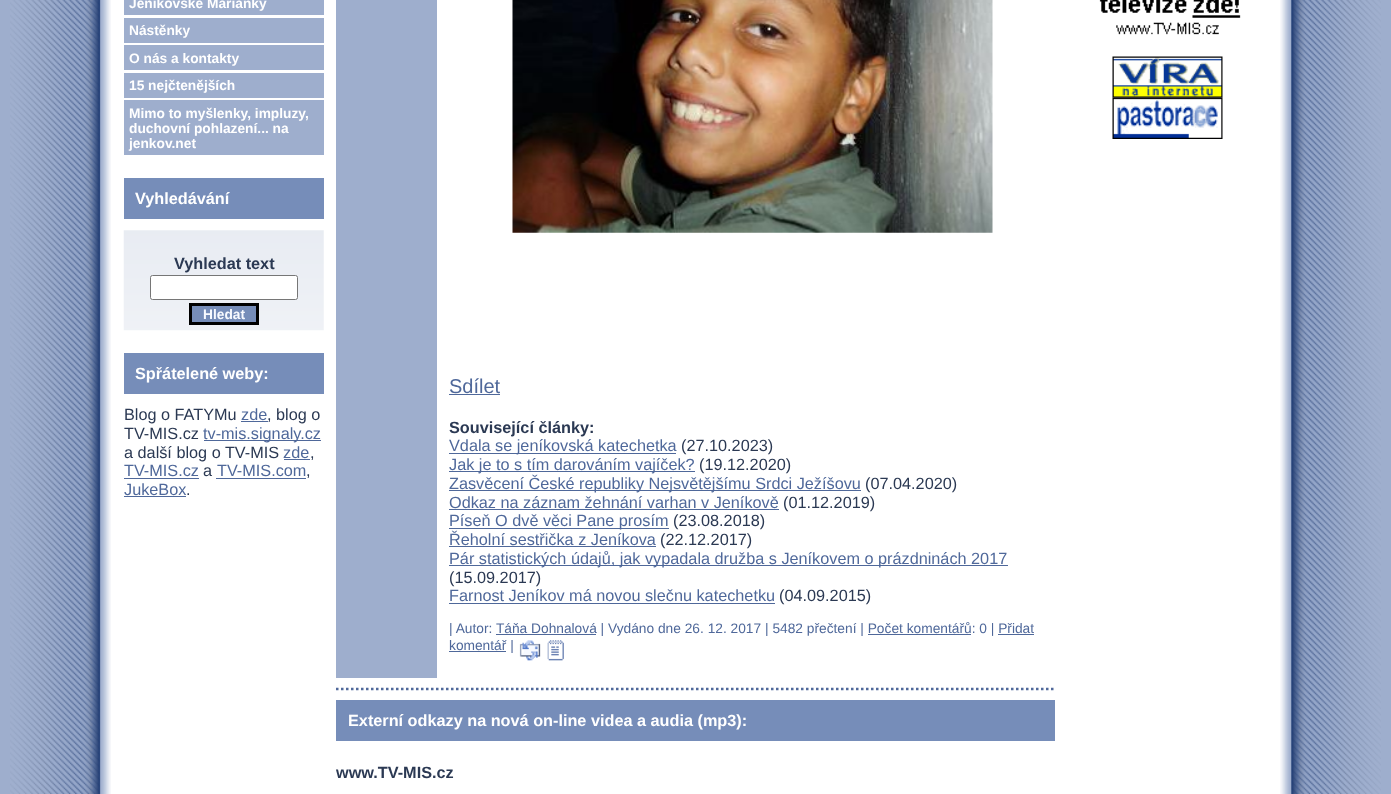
async function draw(canvas) {
  canvas.width = 1391
  canvas.height = 794
  const ctx = canvas.getContext('2d')
  ctx.miterLimit = 4
  ctx.fontKerning = 'normal'
  async function loadImage(src) {
    const img = new Image()
    img.src = src
    await img.decode()
    return img
  }

  ctx.fillStyle = '#fff'
  ctx.fillRect(0, 0, 1391, 794)
  ctx.fillStyle = '#9eaecd'
  ctx.fillRect(0, 0, 10, 794)
  ctx.drawImage(await loadImage('image0.png'), 10, 0, 101, 794)
  ctx.fillRect(124, 0, 200, 15)
  ctx.font = 'bold 13.75px Liberation Sans'
  ctx.fillStyle = '#fff'
  ctx.fillText('Jeníkovské Marianky', 129, 8)
  ctx.fillStyle = '#9eaecd'
  ctx.fillRect(124, 18, 200, 25)
  ctx.fillStyle = '#fff'
  ctx.fillText('Nástěnky', 129, 35)
  ctx.fillStyle = '#9eaecd'
  ctx.fillRect(124, 45, 200, 25)
  ctx.fillStyle = '#fff'
  ctx.fillText('O nás a kontakty', 129, 63)
  ctx.fillStyle = '#9eaecd'
  ctx.fillRect(124, 73, 200, 25)
  ctx.fillStyle = '#fff'
  ctx.fillText('15 nejčtenějších', 129, 90)
  ctx.fillStyle = '#9eaecd'
  ctx.fillRect(124, 100, 200, 55)
  ctx.fillStyle = '#fff'
  ctx.fillText('Mimo to myšlenky, impluzy,', 129, 118)
  ctx.fillText('duchovní pohlazení... na', 129, 133)
  ctx.fillText('jenkov.net', 129, 148)
  ctx.fillStyle = '#768db9'
  ctx.fillRect(124, 178, 200, 41)
  ctx.font = 'bold 16.25px Liberation Sans'
  ctx.fillStyle = '#fff'
  ctx.fillText('Vyhledávání', 135, 204)
  ctx.drawImage(await loadImage('image1.png'), 123, 230, 201, 101)
  ctx.fillStyle = '#2b3953'
  ctx.fillText('Vyhledat text', 174, 269)
  ctx.fillStyle = '#fff'
  ctx.beginPath()
  ctx.roundRect(150.5, 275.5, 147, 24, 2)
  ctx.fill()
  ctx.strokeStyle = '#767676'
  ctx.stroke()
  ctx.fillStyle = '#768db9'
  ctx.beginPath()
  ctx.rect(190.5, 304.5, 67, 19)
  ctx.fill()
  ctx.strokeStyle = '#000'
  ctx.lineWidth = 3
  ctx.stroke()
  ctx.font = 'bold 13.75px Liberation Sans'
  ctx.fillStyle = '#f8faff'
  ctx.fillText('Hledat', 203, 319)
  ctx.fillStyle = '#768db9'
  ctx.fillRect(124, 353, 200, 41)
  ctx.font = 'bold 16.25px Liberation Sans'
  ctx.fillStyle = '#fff'
  ctx.fillText('Spřátelené weby:', 135, 379)
  ctx.font = '16.25px Liberation Sans'
  ctx.fillStyle = '#2b3953'
  ctx.fillText('Blog o FATYMu', 124, 420)
  ctx.fillStyle = '#4f689a'
  ctx.fillText('zde', 241, 420)
  ctx.fillRect(241, 421, 27, 1)
  ctx.fillStyle = '#2b3953'
  ctx.fillText(', blog o', 267, 420)
  ctx.fillText('TV-MIS.cz', 124, 439)
  ctx.fillStyle = '#4f689a'
  ctx.fillRect(204, 440, 117, 1)
  ctx.fillText('tv-mis.signaly.cz', 203, 439)
  ctx.fillStyle = '#2b3953'
  ctx.fillText('a další blog o TV-MIS', 124, 458)
  ctx.fillStyle = '#4f689a'
  ctx.fillText('zde', 283, 458)
  ctx.fillRect(284, 459, 26, 1)
  ctx.fillStyle = '#2b3953'
  ctx.fillText(',', 310, 458)
  ctx.fillStyle = '#4f689a'
  ctx.fillText('TV-MIS.cz', 124, 476)
  ctx.fillRect(124, 478, 75, 1)
  ctx.fillStyle = '#2b3953'
  ctx.fillText('a', 203, 476)
  ctx.fillStyle = '#4f689a'
  ctx.fillText('TV-MIS.com', 217, 476)
  ctx.fillRect(216, 478, 90, 1)
  ctx.fillStyle = '#2b3953'
  ctx.fillText(',', 306, 476)
  ctx.fillStyle = '#4f689a'
  ctx.fillText('JukeBox', 124, 495)
  ctx.fillRect(124, 496, 62, 1)
  ctx.fillStyle = '#2b3953'
  ctx.fillText('.', 186, 495)
  ctx.drawImage(await loadImage('image2.png'), 1099, 0, 142, 35)
  ctx.drawImage(await loadImage('image3.png'), 1112, 56, 111, 42)
  ctx.drawImage(await loadImage('image4.png'), 1112, 97, 111, 42)
  ctx.beginPath()
  ctx.moveTo(336, 689)
  ctx.lineTo(1055, 689)
  ctx.strokeStyle = '#4f689a'
  ctx.lineWidth = 2.5
  ctx.setLineDash([2.5, 2.5])
  ctx.stroke()
  ctx.fillStyle = '#9eaecd'
  ctx.fillRect(336, 0, 101, 678)
  ctx.drawImage(await loadImage('image5.png'), 512, 0, 481, 233)
  ctx.font = '20px Liberation Sans'
  ctx.fillStyle = '#4f689a'
  ctx.fillText('Sdílet', 449, 393)
  ctx.fillRect(449, 394, 51, 1)
  ctx.font = 'bold 16.25px Liberation Sans'
  ctx.fillStyle = '#2b3953'
  ctx.fillText('Související články:', 449, 433)
  ctx.fillStyle = '#4f689a'
  ctx.fillRect(449, 453, 227, 1)
  ctx.font = '16.25px Liberation Sans'
  ctx.fillText('Vdala se jeníkovská katechetka', 449, 451)
  ctx.fillStyle = '#2b3953'
  ctx.fillText('(27.10.2023)', 681, 451)
  ctx.fillStyle = '#4f689a'
  ctx.fillRect(449, 471, 246, 1)
  ctx.fillText('Jak je to s tím darováním vajíček?', 449, 470)
  ctx.fillStyle = '#2b3953'
  ctx.fillText('(19.12.2020)', 699, 470)
  ctx.fillStyle = '#4f689a'
  ctx.fillRect(449, 490, 412, 1)
  ctx.fillText('Zasvěcení České republiky Nejsvětějšímu Srdci Ježíšovu', 449, 489)
  ctx.fillStyle = '#2b3953'
  ctx.fillText('(07.04.2020)', 865, 489)
  ctx.fillStyle = '#4f689a'
  ctx.fillText('Odkaz na záznam žehnání varhan v Jeníkově', 449, 508)
  ctx.fillRect(449, 509, 330, 1)
  ctx.fillStyle = '#2b3953'
  ctx.fillText('(01.12.2019)', 783, 508)
  ctx.fillStyle = '#4f689a'
  ctx.fillRect(449, 528, 220, 1)
  ctx.fillText('Píseň O dvě věci Pane prosím', 449, 526)
  ctx.fillStyle = '#2b3953'
  ctx.fillText('(23.08.2018)', 673, 526)
  ctx.fillStyle = '#4f689a'
  ctx.fillText('Řeholní sestřička z Jeníkova', 449, 545)
  ctx.fillRect(449, 546, 207, 1)
  ctx.fillStyle = '#2b3953'
  ctx.fillText('(22.12.2017)', 660, 545)
  ctx.fillStyle = '#4f689a'
  ctx.fillRect(449, 565, 559, 1)
  ctx.fillText('Pár statistických údajů, jak vypadala družba s Jeníkovem o prázdninách 2017', 449, 564)
  ctx.fillStyle = '#2b3953'
  ctx.fillText('(15.09.2017)', 449, 583)
  ctx.fillStyle = '#4f689a'
  ctx.fillText('Farnost Jeníkov má novou slečnu katechetku', 449, 601)
  ctx.fillRect(449, 603, 326, 1)
  ctx.fillStyle = '#2b3953'
  ctx.fillText('(04.09.2015)', 779, 601)
  ctx.font = '13.75px Liberation Sans'
  ctx.fillStyle = '#4f689a'
  ctx.fillText('| Autor: Táňa Dohnalová | Vydáno dne 26. 12. 2017 | 5482 přečtení | Počet komentářů: 0 | Přidat', 449, 633)
  ctx.fillRect(496, 634, 100, 1)
  ctx.fillRect(868, 634, 103, 1)
  ctx.fillRect(998, 634, 36, 1)
  ctx.fillRect(449, 651, 57, 1)
  ctx.fillText('komentář |', 449, 650)
  ctx.drawImage(await loadImage('image6.png'), 519, 640, 22, 21)
  ctx.drawImage(await loadImage('image7.png'), 547, 640, 17, 21)
  ctx.fillStyle = '#768db9'
  ctx.fillRect(336, 700, 719, 41)
  ctx.font = 'bold 16.25px Liberation Sans'
  ctx.fillStyle = '#fff'
  ctx.fillText('Externí odkazy na nová on-line videa a audia (mp3):', 348, 726)
  ctx.fillStyle = '#2b3953'
  ctx.fillText('www.TV-MIS.cz', 336, 778)
  ctx.fillStyle = '#9eaecd'
  ctx.fillRect(1381, 0, 10, 794)
  ctx.drawImage(await loadImage('image8.png'), 1280, 0, 101, 794)
}

draw(document.querySelector('canvas'))
